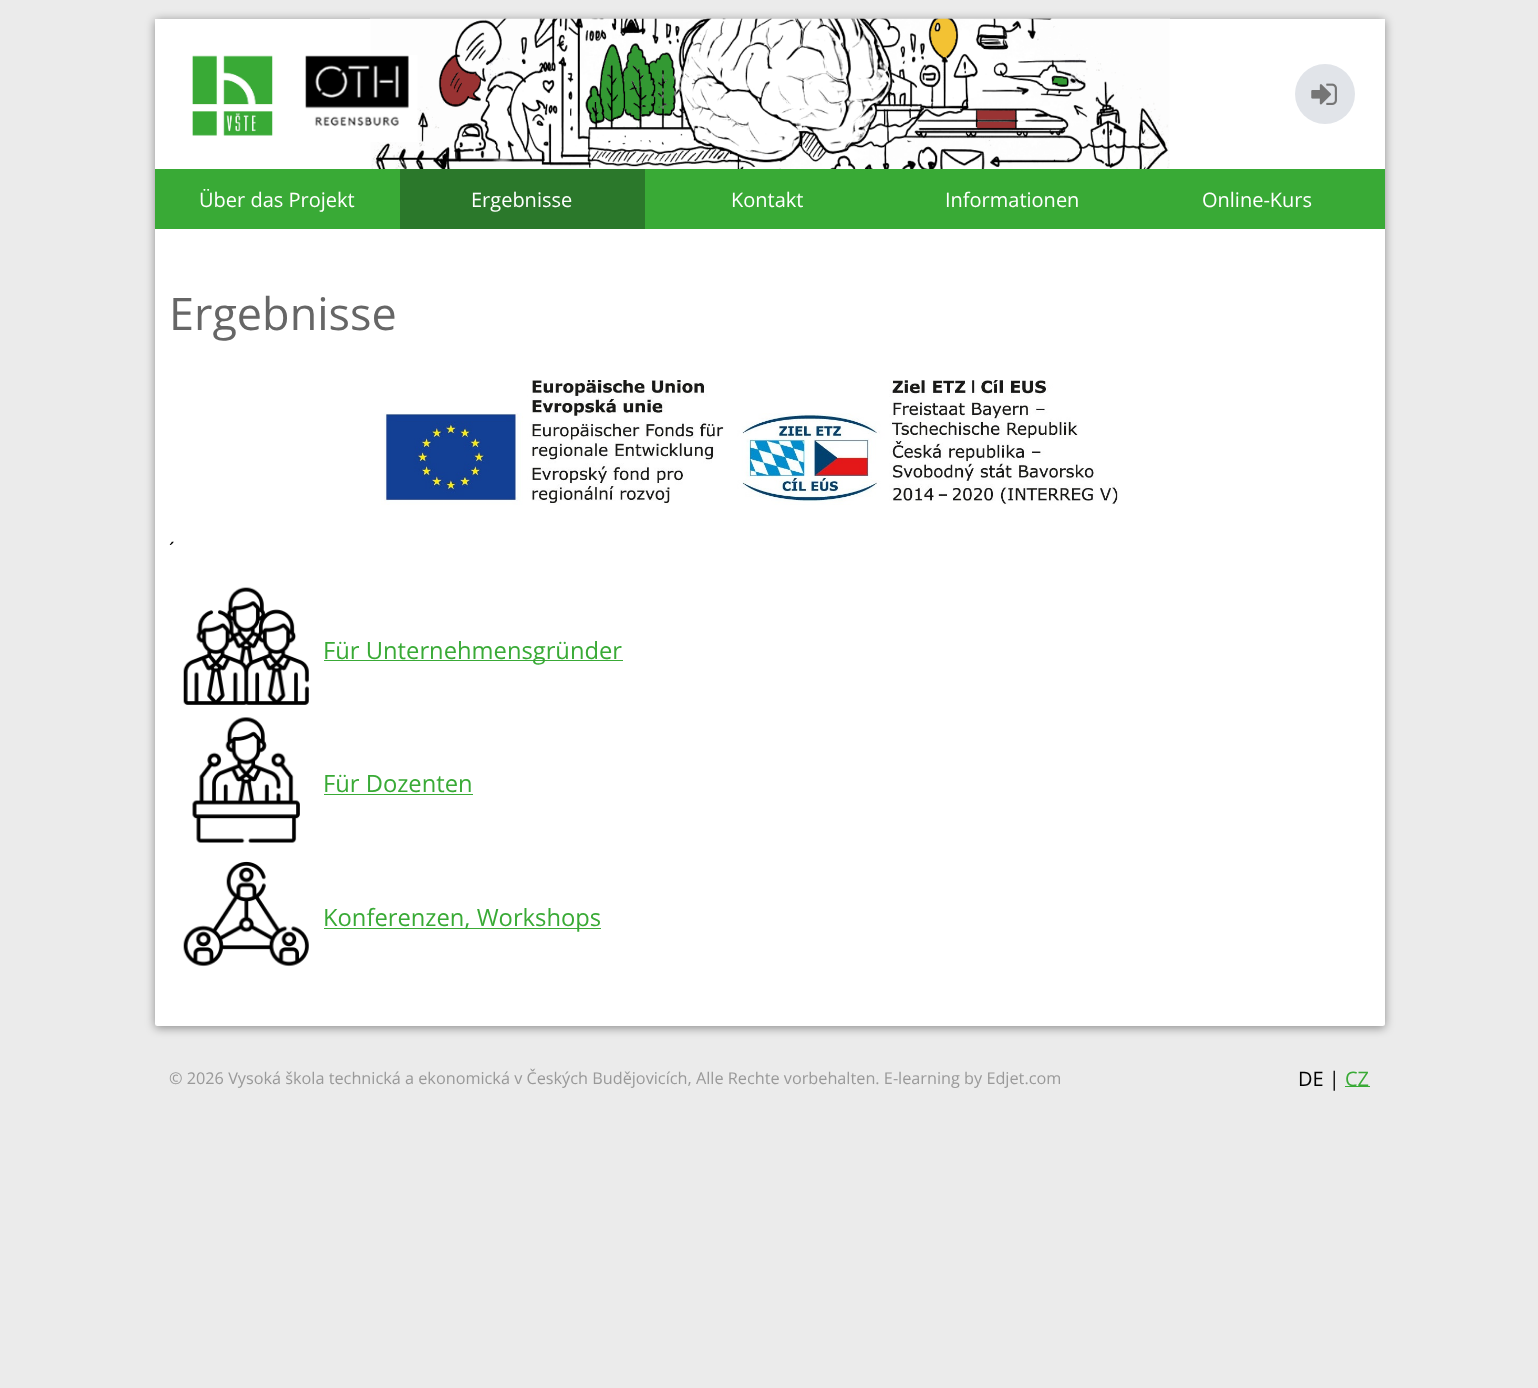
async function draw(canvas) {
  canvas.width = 1538
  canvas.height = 1388
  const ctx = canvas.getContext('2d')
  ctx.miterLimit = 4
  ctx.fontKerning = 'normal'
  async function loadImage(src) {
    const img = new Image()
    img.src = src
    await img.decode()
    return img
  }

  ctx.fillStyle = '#ebebeb'
  ctx.fillRect(0, 0, 1538, 1388)
  ctx.fillStyle = '#00000066'
  ctx.filter = 'blur(5px)'
  ctx.beginPath()
  ctx.roundRect(155, 20, 1230, 1008, 2.5)
  ctx.fill()
  ctx.filter = 'none'
  ctx.fillStyle = '#fff'
  ctx.beginPath()
  ctx.roundRect(155, 19, 1230, 1007, 2.5)
  ctx.fill()
  ctx.fillRect(155, 19, 1230, 2)
  ctx.drawImage(await loadImage('image0.png'), 370, 18, 800, 151)
  ctx.drawImage(await loadImage('image1.png'), 192, 55, 226, 87)
  ctx.fillStyle = '#e1e4e9'
  ctx.beginPath()
  ctx.arc(1325, 94, 30, 0, 2 * Math.PI)
  ctx.fill()
  ctx.drawImage(await loadImage('image2.png'), 1311, 83, 26, 22)
  ctx.fillStyle = '#39aa36'
  ctx.fillRect(155, 169, 1230, 60)
  ctx.font = '20px Open Sans'
  ctx.fillStyle = '#fff'
  ctx.fillText('Über das Projekt', 199, 207)
  ctx.fillStyle = '#2b782b'
  ctx.fillRect(400, 169, 245, 60)
  ctx.fillStyle = '#fff'
  ctx.fillText('Ergebnisse', 471, 207)
  ctx.fillText('Kontakt', 731, 207)
  ctx.fillText('Informationen', 945, 207)
  ctx.fillText('Online-Kurs', 1202, 207)
  ctx.font = '45px Open Sans'
  ctx.fillStyle = '#666'
  ctx.fillText('Ergebnisse', 169, 330)
  ctx.drawImage(await loadImage('image3.png'), 381, 380, 738, 125)
  ctx.font = '20px Open Sans'
  ctx.fillStyle = '#000'
  ctx.fillText('´', 169, 557)
  ctx.drawImage(await loadImage('image4.png'), 183, 587, 126, 118)
  ctx.fillStyle = '#39aa36'
  ctx.fillRect(324, 660, 299, 1)
  ctx.font = '23.75px Open Sans'
  ctx.fillText('Für Unternehmensgründer', 323, 659)
  ctx.drawImage(await loadImage('image5.png'), 192, 717, 108, 126)
  ctx.fillText('Für Dozenten', 323, 792)
  ctx.fillRect(324, 794, 149, 1)
  ctx.drawImage(await loadImage('image6.png'), 183, 861, 126, 106)
  ctx.fillRect(324, 928, 277, 1)
  ctx.fillText('Konferenzen, Workshops', 323, 926)
  ctx.font = '16.25px Open Sans'
  ctx.fillStyle = '#999'
  ctx.fillText('© 2026 Vysoká škola technická a ekonomická v Českých Budějovicích, Alle Rechte vorbehalten. E-learning by Edjet.com', 169, 1084)
  ctx.font = '20px Open Sans'
  ctx.fillStyle = '#000'
  ctx.fillText('DE |', 1298, 1086)
  ctx.fillStyle = '#39aa36'
  ctx.fillRect(1345, 1086, 25, 1)
  ctx.fillText('CZ', 1345, 1086)
}

draw(document.querySelector('canvas'))
